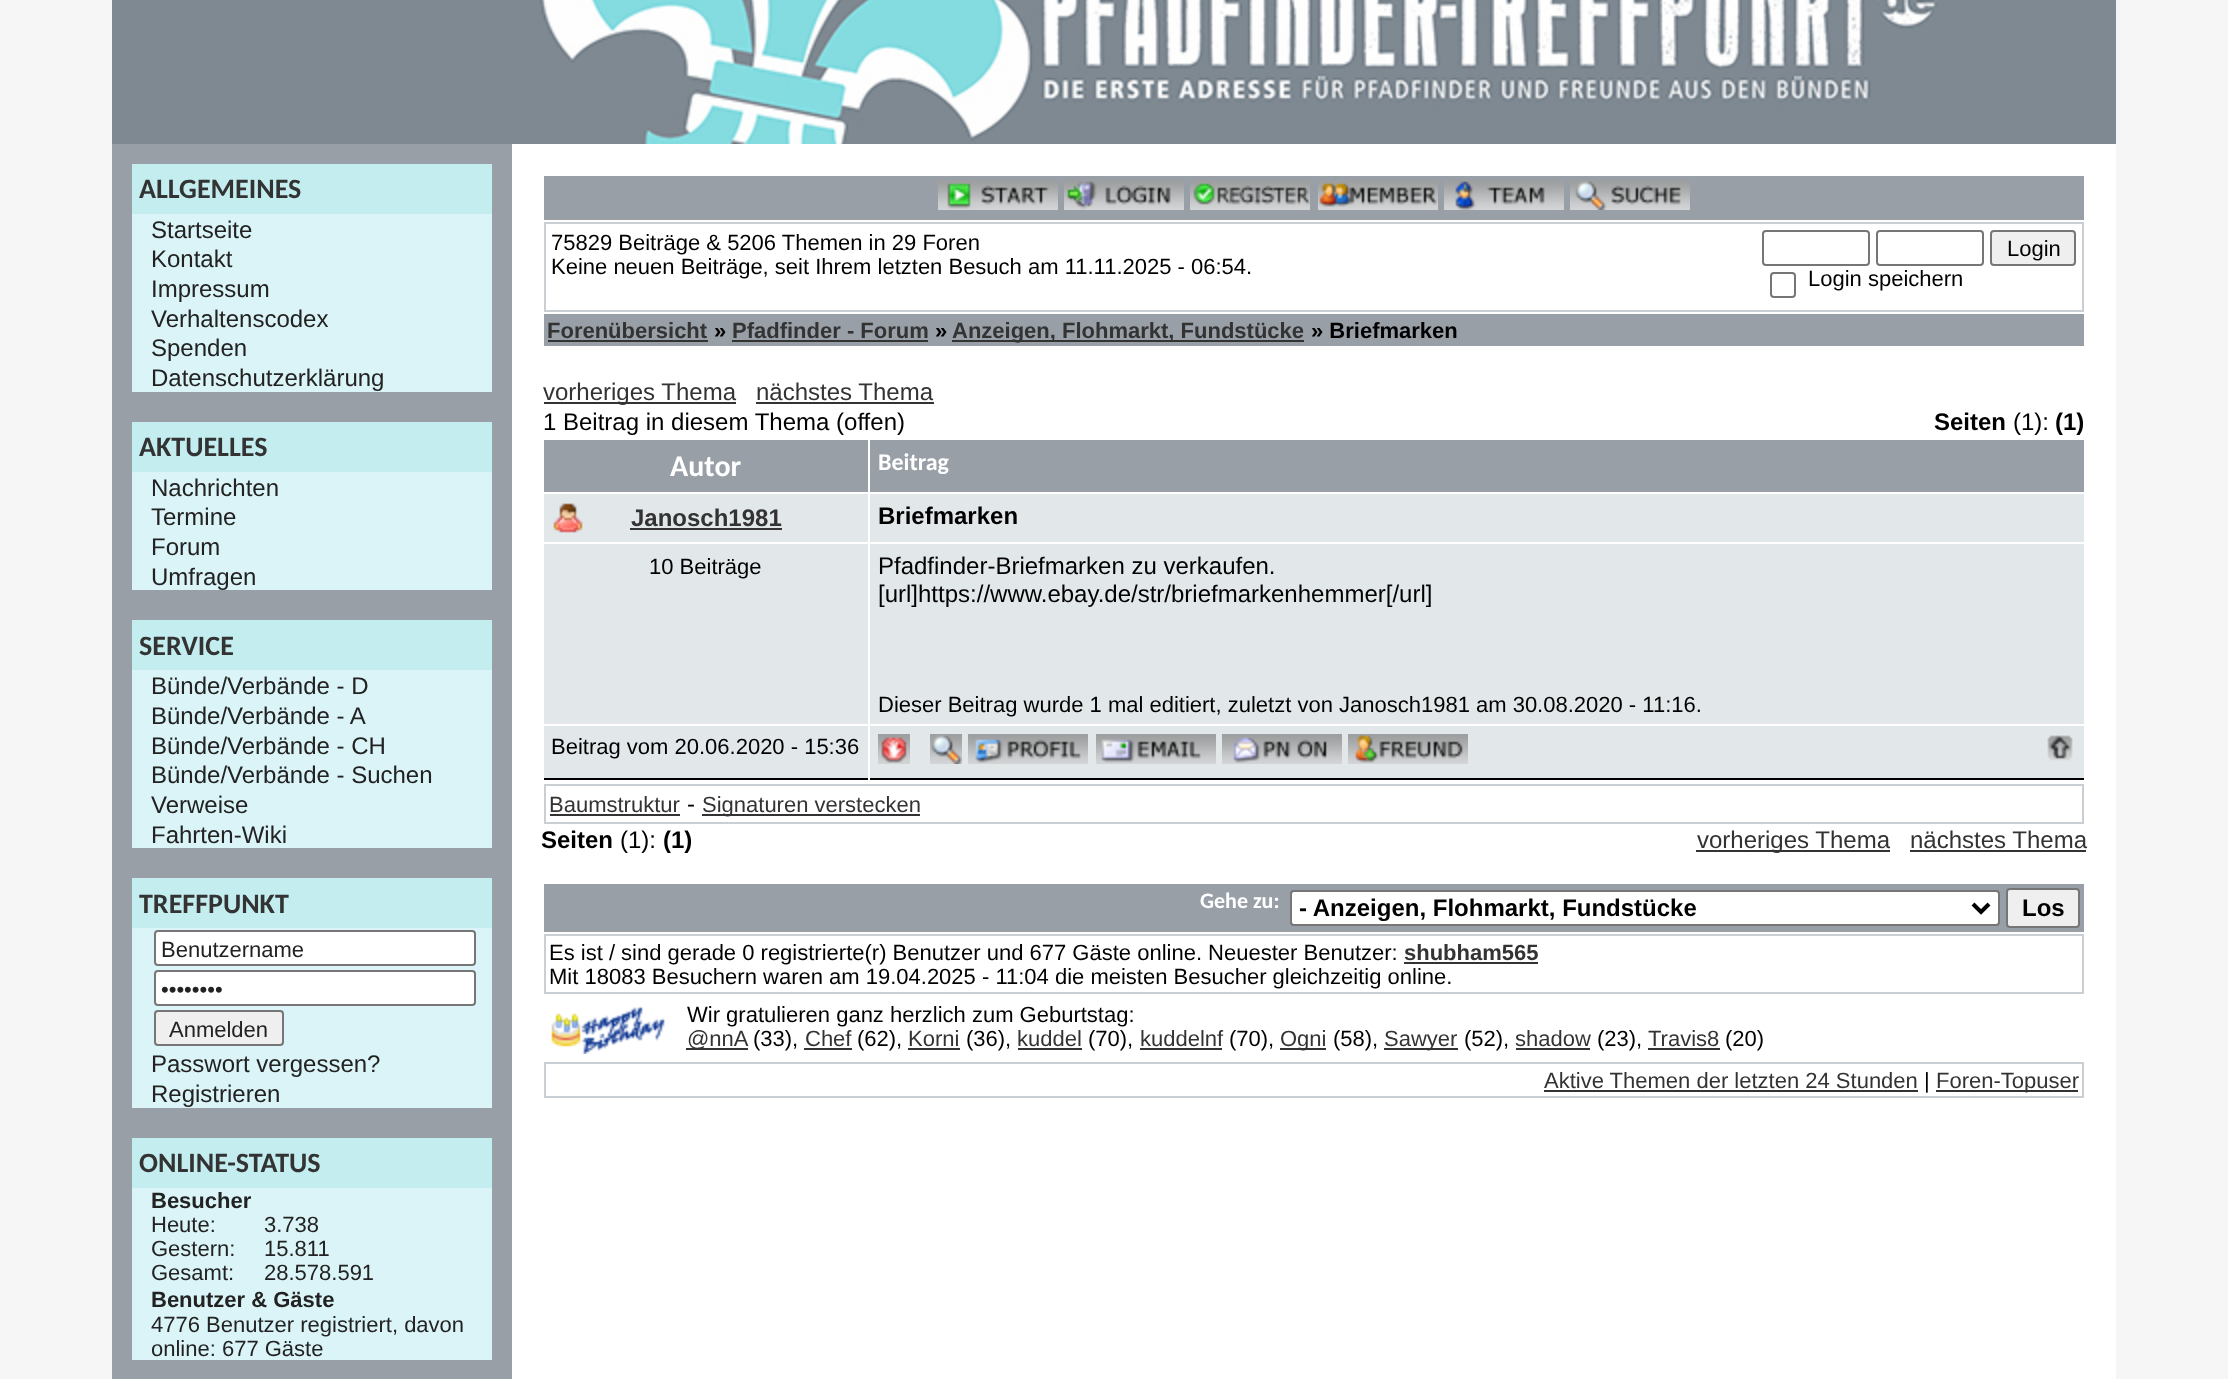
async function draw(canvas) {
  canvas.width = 2228
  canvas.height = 1379
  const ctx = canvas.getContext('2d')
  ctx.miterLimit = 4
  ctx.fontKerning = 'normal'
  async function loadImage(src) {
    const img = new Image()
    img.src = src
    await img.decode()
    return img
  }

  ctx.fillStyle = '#f6f6f6'
  ctx.fillRect(0, 0, 2228, 1379)
  ctx.fillStyle = '#7e8992'
  ctx.fillRect(112, 0, 2004, 144)
  ctx.drawImage(await loadImage('image0.png'), 540, 0, 1398, 144)
  ctx.fillStyle = '#989fa7'
  ctx.fillRect(112, 144, 400, 1235)
  ctx.fillStyle = '#c4edf0'
  ctx.fillRect(132, 164, 360, 50)
  ctx.font = 'bold 28px Carlito'
  ctx.fillStyle = '#333'
  ctx.fillText('ALLGEMEINES', 139, 198)
  ctx.fillStyle = '#dbf4f7'
  ctx.fillRect(132, 214, 360, 178)
  ctx.font = '24px Liberation Sans'
  ctx.fillStyle = '#222'
  ctx.fillText('Startseite', 151, 238)
  ctx.fillText('Kontakt', 151, 267)
  ctx.fillText('Impressum', 151, 297)
  ctx.fillText('Verhaltenscodex', 151, 327)
  ctx.fillText('Spenden', 151, 356)
  ctx.fillText('Datenschutzerklärung', 151, 386)
  ctx.fillStyle = '#c4edf0'
  ctx.fillRect(132, 422, 360, 50)
  ctx.font = 'bold 28px Carlito'
  ctx.fillStyle = '#333'
  ctx.fillText('AKTUELLES', 139, 456)
  ctx.fillStyle = '#dbf4f7'
  ctx.fillRect(132, 472, 360, 118)
  ctx.font = '24px Liberation Sans'
  ctx.fillStyle = '#222'
  ctx.fillText('Nachrichten', 151, 496)
  ctx.fillText('Termine', 151, 525)
  ctx.fillText('Forum', 151, 555)
  ctx.fillText('Umfragen', 151, 585)
  ctx.fillStyle = '#c4edf0'
  ctx.fillRect(132, 620, 360, 50)
  ctx.font = 'bold 28px Carlito'
  ctx.fillStyle = '#333'
  ctx.fillText('SERVICE', 139, 655)
  ctx.fillStyle = '#dbf4f7'
  ctx.fillRect(132, 670, 360, 178)
  ctx.font = '24px Liberation Sans'
  ctx.fillStyle = '#222'
  ctx.fillText('Bünde/Verbände - D', 151, 694)
  ctx.fillText('Bünde/Verbände - A', 151, 724)
  ctx.fillText('Bünde/Verbände - CH', 151, 754)
  ctx.fillText('Bünde/Verbände - Suchen', 151, 783)
  ctx.fillText('Verweise', 151, 813)
  ctx.fillText('Fahrten-Wiki', 151, 843)
  ctx.fillStyle = '#c4edf0'
  ctx.fillRect(132, 878, 360, 50)
  ctx.font = 'bold 28px Carlito'
  ctx.fillStyle = '#333'
  ctx.fillText('TREFFPUNKT', 139, 913)
  ctx.fillStyle = '#dbf4f7'
  ctx.fillRect(132, 928, 360, 180)
  ctx.fillStyle = '#fff'
  ctx.beginPath()
  ctx.roundRect(155, 931, 320, 34, 3)
  ctx.fill()
  ctx.strokeStyle = '#767676'
  ctx.lineWidth = 2
  ctx.stroke()
  ctx.font = '22px Liberation Sans'
  ctx.fillStyle = '#222'
  ctx.fillText('Benutzername', 161, 957)
  ctx.fillStyle = '#fff'
  ctx.beginPath()
  ctx.roundRect(155, 971, 320, 34, 3)
  ctx.fill()
  ctx.stroke()
  ctx.fillStyle = '#222'
  ctx.fillText('••••••••', 161, 997)
  ctx.fillStyle = '#efefef'
  ctx.beginPath()
  ctx.roundRect(155, 1011, 128, 34, 3)
  ctx.fill()
  ctx.stroke()
  ctx.fillStyle = '#222'
  ctx.fillText('Anmelden', 169, 1037)
  ctx.font = '24px Liberation Sans'
  ctx.fillText('Passwort vergessen?', 151, 1072)
  ctx.fillText('Registrieren', 151, 1102)
  ctx.fillStyle = '#c4edf0'
  ctx.fillRect(132, 1138, 360, 50)
  ctx.font = 'bold 28px Carlito'
  ctx.fillStyle = '#333'
  ctx.fillText('ONLINE-STATUS', 139, 1172)
  ctx.fillStyle = '#dbf4f7'
  ctx.fillRect(132, 1188, 360, 172)
  ctx.font = 'bold 22px Liberation Sans'
  ctx.fillStyle = '#222'
  ctx.fillText('Besucher', 151, 1208)
  ctx.font = '22px Liberation Sans'
  ctx.fillText('Heute:', 151, 1232)
  ctx.fillText('3.738', 264, 1232)
  ctx.fillText('Gestern:', 151, 1256)
  ctx.fillText('15.811', 264, 1256)
  ctx.fillText('Gesamt:', 151, 1280)
  ctx.fillText('28.578.591', 264, 1280)
  ctx.font = 'bold 22px Liberation Sans'
  ctx.fillText('Benutzer & Gäste', 151, 1307)
  ctx.font = '22px Liberation Sans'
  ctx.fillText('4776 Benutzer registriert, davon', 151, 1332)
  ctx.fillText('online: 677 Gäste', 151, 1356)
  ctx.fillStyle = '#fff'
  ctx.fillRect(512, 144, 1604, 1235)
  ctx.fillStyle = '#989fa7'
  ctx.fillRect(544, 176, 1540, 44)
  ctx.drawImage(await loadImage('image1.png'), 938, 180, 120, 30)
  ctx.drawImage(await loadImage('image2.png'), 1064, 180, 120, 30)
  ctx.drawImage(await loadImage('image3.png'), 1190, 180, 120, 30)
  ctx.drawImage(await loadImage('image4.png'), 1318, 180, 120, 30)
  ctx.drawImage(await loadImage('image5.png'), 1444, 180, 120, 30)
  ctx.drawImage(await loadImage('image6.png'), 1570, 180, 120, 30)
  ctx.strokeStyle = '#cacfd4'
  ctx.strokeRect(545, 223, 1538, 88)
  ctx.fillStyle = '#000'
  ctx.fillText('75829 Beiträge & 5206 Themen in 29 Foren', 551, 250)
  ctx.fillText('Keine neuen Beiträge, seit Ihrem letzten Besuch am 11.11.2025 - 06:54.', 551, 274)
  ctx.beginPath()
  ctx.roundRect(1763, 231, 106, 34, 3)
  ctx.strokeStyle = '#767676'
  ctx.stroke()
  ctx.beginPath()
  ctx.roundRect(1877, 231, 106, 34, 3)
  ctx.stroke()
  ctx.fillStyle = '#efefef'
  ctx.beginPath()
  ctx.roundRect(1991, 231, 84, 34, 3)
  ctx.fill()
  ctx.stroke()
  ctx.fillStyle = '#000'
  ctx.fillText('Login', 2007, 256)
  ctx.beginPath()
  ctx.roundRect(1771, 273, 24, 24, 3)
  ctx.stroke()
  ctx.fillText('Login speichern', 1808, 286)
  ctx.fillStyle = '#989fa7'
  ctx.fillRect(544, 314, 1540, 32)
  ctx.font = 'bold 22px Liberation Sans'
  ctx.fillStyle = '#333'
  ctx.fillText('Forenübersicht', 547, 338)
  ctx.fillRect(548, 340, 160, 2)
  ctx.fillStyle = '#000'
  ctx.fillText('»', 714, 338)
  ctx.fillStyle = '#333'
  ctx.fillText('Pfadfinder - Forum', 732, 338)
  ctx.fillRect(732, 340, 196, 2)
  ctx.fillStyle = '#000'
  ctx.fillText('»', 935, 338)
  ctx.fillStyle = '#333'
  ctx.fillRect(952, 340, 352, 2)
  ctx.fillText('Anzeigen, Flohmarkt, Fundstücke', 952, 338)
  ctx.fillStyle = '#000'
  ctx.fillText('» Briefmarken', 1311, 338)
  ctx.fillStyle = '#333'
  ctx.fillRect(544, 402, 192, 2)
  ctx.font = '24px Liberation Sans'
  ctx.fillText('vorheriges Thema', 543, 400)
  ctx.fillText('nächstes Thema', 756, 400)
  ctx.fillRect(756, 402, 178, 2)
  ctx.fillStyle = '#000'
  ctx.fillText('1 Beitrag in diesem Thema (offen)', 543, 430)
  ctx.font = 'bold 24px Liberation Sans'
  ctx.fillText('Seiten', 1934, 430)
  ctx.font = '24px Liberation Sans'
  ctx.fillText('(1):', 2013, 430)
  ctx.font = 'bold 24px Liberation Sans'
  ctx.fillText('(1)', 2055, 430)
  ctx.fillStyle = '#989fa7'
  ctx.fillRect(544, 440, 324, 52)
  ctx.font = 'bold 30px Carlito'
  ctx.fillStyle = '#fff'
  ctx.fillText('Autor', 670, 476)
  ctx.fillStyle = '#989fa7'
  ctx.fillRect(870, 440, 1214, 52)
  ctx.font = 'bold 24px Carlito'
  ctx.fillStyle = '#fff'
  ctx.fillText('Beitrag', 878, 470)
  ctx.fillStyle = '#e2e7ea'
  ctx.fillRect(544, 494, 324, 48)
  ctx.drawImage(await loadImage('image7.png'), 553, 503, 30, 30)
  ctx.font = 'bold 24px Liberation Sans'
  ctx.fillStyle = '#333'
  ctx.fillText('Janosch1981', 631, 526)
  ctx.fillRect(630, 528, 152, 2)
  ctx.fillStyle = '#e2e7ea'
  ctx.fillRect(870, 494, 1214, 48)
  ctx.fillStyle = '#000'
  ctx.fillText('Briefmarken', 878, 524)
  ctx.fillStyle = '#e2e7ea'
  ctx.fillRect(544, 544, 324, 180)
  ctx.font = '22px Liberation Sans'
  ctx.fillStyle = '#000'
  ctx.fillText('10 Beiträge', 649, 574)
  ctx.fillStyle = '#e2e7ea'
  ctx.fillRect(870, 544, 1214, 180)
  ctx.font = '24px Liberation Sans'
  ctx.fillStyle = '#000'
  ctx.fillText('Pfadfinder-Briefmarken zu verkaufen.', 878, 574)
  ctx.fillText('[url]https://www.ebay.de/str/briefmarkenhemmer[/url]', 878, 602)
  ctx.font = '22px Liberation Sans'
  ctx.fillText('Dieser Beitrag wurde 1 mal editiert, zuletzt von Janosch1981 am 30.08.2020 - 11:16.', 878, 712)
  ctx.fillStyle = '#e2e7ea'
  ctx.fillRect(544, 726, 324, 52)
  ctx.fillStyle = '#000'
  ctx.fillRect(544, 778, 324, 2)
  ctx.fillText('Beitrag vom 20.06.2020 - 15:36', 551, 754)
  ctx.fillStyle = '#e2e7ea'
  ctx.fillRect(870, 726, 1214, 52)
  ctx.fillStyle = '#000'
  ctx.fillRect(870, 778, 1214, 2)
  ctx.drawImage(await loadImage('image8.png'), 878, 734, 32, 30)
  ctx.drawImage(await loadImage('image9.png'), 930, 734, 32, 30)
  ctx.drawImage(await loadImage('image10.png'), 968, 734, 120, 30)
  ctx.drawImage(await loadImage('image11.png'), 1096, 734, 120, 30)
  ctx.drawImage(await loadImage('image12.png'), 1222, 734, 120, 30)
  ctx.drawImage(await loadImage('image13.png'), 1348, 734, 120, 30)
  ctx.drawImage(await loadImage('image14.png'), 2047, 735, 26, 26)
  ctx.strokeStyle = '#cacfd4'
  ctx.strokeRect(545, 785, 1538, 38)
  ctx.fillStyle = '#333'
  ctx.fillText('Baumstruktur', 549, 812)
  ctx.fillRect(550, 814, 130, 2)
  ctx.font = '24px Liberation Sans'
  ctx.fillStyle = '#000'
  ctx.fillText('-', 687, 812)
  ctx.fillStyle = '#333'
  ctx.fillRect(702, 814, 218, 2)
  ctx.font = '22px Liberation Sans'
  ctx.fillText('Signaturen verstecken', 702, 812)
  ctx.font = 'bold 24px Liberation Sans'
  ctx.fillStyle = '#000'
  ctx.fillText('Seiten', 541, 848)
  ctx.font = '24px Liberation Sans'
  ctx.fillText('(1):', 620, 848)
  ctx.font = 'bold 24px Liberation Sans'
  ctx.fillText('(1)', 663, 848)
  ctx.fillStyle = '#333'
  ctx.fillRect(1696, 850, 194, 2)
  ctx.font = '24px Liberation Sans'
  ctx.fillText('vorheriges Thema', 1697, 848)
  ctx.fillText('nächstes Thema', 1910, 848)
  ctx.fillRect(1910, 850, 176, 2)
  ctx.fillStyle = '#989fa7'
  ctx.fillRect(544, 884, 1540, 48)
  ctx.font = 'bold 22px Carlito'
  ctx.fillStyle = '#fff'
  ctx.fillText('Gehe zu:', 1200, 908)
  ctx.beginPath()
  ctx.roundRect(1291, 891, 708, 34, 3)
  ctx.fill()
  ctx.strokeStyle = '#767676'
  ctx.stroke()
  ctx.beginPath()
  ctx.moveTo(1973, 904)
  ctx.lineTo(1981, 912)
  ctx.lineTo(1989, 904)
  ctx.strokeStyle = '#000'
  ctx.lineWidth = 4
  ctx.stroke()
  ctx.font = 'bold 24px Liberation Sans'
  ctx.fillStyle = '#000'
  ctx.fillText('- Anzeigen, Flohmarkt, Fundstücke', 1299, 916)
  ctx.fillStyle = '#efefef'
  ctx.beginPath()
  ctx.roundRect(2007, 889, 72, 38, 3)
  ctx.fill()
  ctx.strokeStyle = '#767676'
  ctx.lineWidth = 2
  ctx.stroke()
  ctx.fillStyle = '#000'
  ctx.fillText('Los', 2022, 916)
  ctx.strokeStyle = '#cacfd4'
  ctx.strokeRect(545, 935, 1538, 58)
  ctx.font = '22px Liberation Sans'
  ctx.fillText('Es ist / sind gerade 0 registrierte(r) Benutzer und 677 Gäste online. Neuester Benutzer:', 549, 960)
  ctx.font = 'bold 22px Liberation Sans'
  ctx.fillStyle = '#333'
  ctx.fillText('shubham565', 1404, 960)
  ctx.fillRect(1404, 962, 134, 2)
  ctx.font = '22px Liberation Sans'
  ctx.fillStyle = '#000'
  ctx.fillText('Mit 18083 Besuchern waren am 19.04.2025 - 11:04 die meisten Besucher gleichzeitig online.', 549, 984)
  ctx.drawImage(await loadImage('image15.png'), 551, 1006, 114, 48)
  ctx.fillText('Wir gratulieren ganz herzlich zum Geburtstag:', 687, 1022)
  ctx.fillStyle = '#333'
  ctx.fillRect(686, 1048, 62, 2)
  ctx.fillText('@nnA', 687, 1046)
  ctx.fillStyle = '#000'
  ctx.fillText('(33),', 753, 1046)
  ctx.fillStyle = '#333'
  ctx.fillText('Chef', 805, 1046)
  ctx.fillRect(804, 1048, 48, 2)
  ctx.fillStyle = '#000'
  ctx.fillText('(62),', 857, 1046)
  ctx.fillStyle = '#333'
  ctx.fillText('Korni', 908, 1046)
  ctx.fillRect(908, 1048, 52, 2)
  ctx.fillStyle = '#000'
  ctx.fillText('(36),', 966, 1046)
  ctx.fillStyle = '#333'
  ctx.fillText('kuddel', 1017, 1046)
  ctx.fillRect(1018, 1048, 64, 2)
  ctx.fillStyle = '#000'
  ctx.fillText('(70),', 1088, 1046)
  ctx.fillStyle = '#333'
  ctx.fillText('kuddelnf', 1140, 1046)
  ctx.fillRect(1140, 1048, 82, 2)
  ctx.fillStyle = '#000'
  ctx.fillText('(70),', 1229, 1046)
  ctx.fillStyle = '#333'
  ctx.fillRect(1280, 1048, 46, 2)
  ctx.fillText('Ogni', 1280, 1046)
  ctx.fillStyle = '#000'
  ctx.fillText('(58),', 1333, 1046)
  ctx.fillStyle = '#333'
  ctx.fillRect(1384, 1048, 74, 2)
  ctx.fillText('Sawyer', 1384, 1046)
  ctx.fillStyle = '#000'
  ctx.fillText('(52),', 1464, 1046)
  ctx.fillStyle = '#333'
  ctx.fillText('shadow', 1515, 1046)
  ctx.fillRect(1516, 1048, 74, 2)
  ctx.fillStyle = '#000'
  ctx.fillText('(23),', 1597, 1046)
  ctx.fillStyle = '#333'
  ctx.fillText('Travis8', 1648, 1046)
  ctx.fillRect(1648, 1048, 72, 2)
  ctx.fillStyle = '#000'
  ctx.fillText('(20)', 1725, 1046)
  ctx.strokeRect(545, 1063, 1538, 34)
  ctx.fillStyle = '#333'
  ctx.fillText('Aktive Themen der letzten 24 Stunden', 1544, 1088)
  ctx.fillRect(1544, 1090, 374, 2)
  ctx.fillStyle = '#000'
  ctx.fillText('|', 1924, 1088)
  ctx.fillStyle = '#333'
  ctx.fillRect(1936, 1090, 142, 2)
  ctx.fillText('Foren-Topuser', 1936, 1088)
}

draw(document.querySelector('canvas'))
